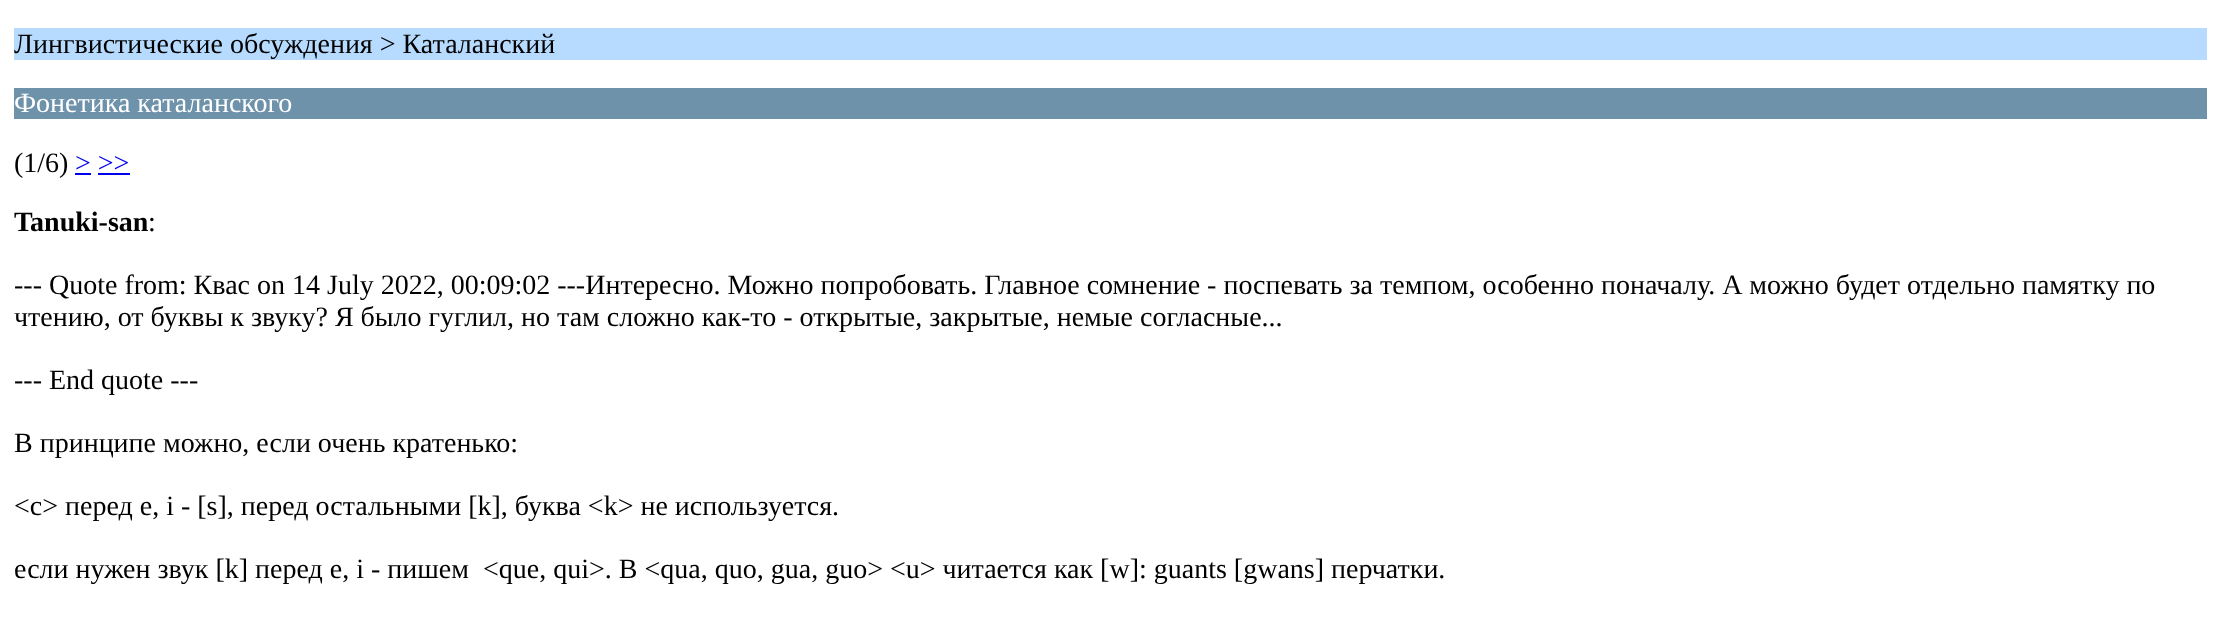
async function draw(canvas) {
  canvas.width = 2220
  canvas.height = 626
  const ctx = canvas.getContext('2d')
  ctx.miterLimit = 4
  ctx.fontKerning = 'normal'

  ctx.fillStyle = '#fff'
  ctx.fillRect(0, 0, 2220, 626)
  ctx.fillStyle = '#b6dbff'
  ctx.fillRect(14, 28, 2193, 32)
  ctx.font = '28px Liberation Serif'
  ctx.fillStyle = '#000'
  ctx.fillText('Лингвистические обсуждения > Каталанский', 14, 53)
  ctx.fillStyle = '#6d92aa'
  ctx.fillRect(14, 88, 2193, 31)
  ctx.fillStyle = '#fff'
  ctx.fillText('Фонетика каталанского', 14, 112)
  ctx.fillStyle = '#000'
  ctx.fillText('(1/6)', 14, 172)
  ctx.fillStyle = '#00e'
  ctx.fillText('> >>', 75, 172)
  ctx.fillRect(75, 173, 16, 2)
  ctx.fillRect(98, 173, 32, 2)
  ctx.font = 'bold 28px Liberation Serif'
  ctx.fillStyle = '#000'
  ctx.fillText('Tanuki-san', 14, 231)
  ctx.font = '28px Liberation Serif'
  ctx.fillText(':', 148, 231)
  ctx.fillText('--- Quote from: Квас on 14 July 2022, 00:09:02 ---Интересно. Можно попробовать. Главное сомнение - поспевать за темпом, особенно поначалу. А можно будет отдельно памятку по', 14, 294)
  ctx.fillText('чтению, от буквы к звуку? Я было гуглил, но там сложно как-то - открытые, закрытые, немые согласные...', 14, 326)
  ctx.fillText('--- End quote ---', 14, 389)
  ctx.fillText('В принципе можно, если очень кратенько:', 14, 452)
  ctx.fillText('<с> перед e, i - [s], перед остальными [k], буква <k> не используется.', 14, 515)
  ctx.fillText('если нужен звук [k] перед e, i - пишем  <que, qui>. В <qua, quo, gua, guo> <u> читается как [w]: guants [gwans] перчатки.', 14, 578)
}

draw(document.querySelector('canvas'))
